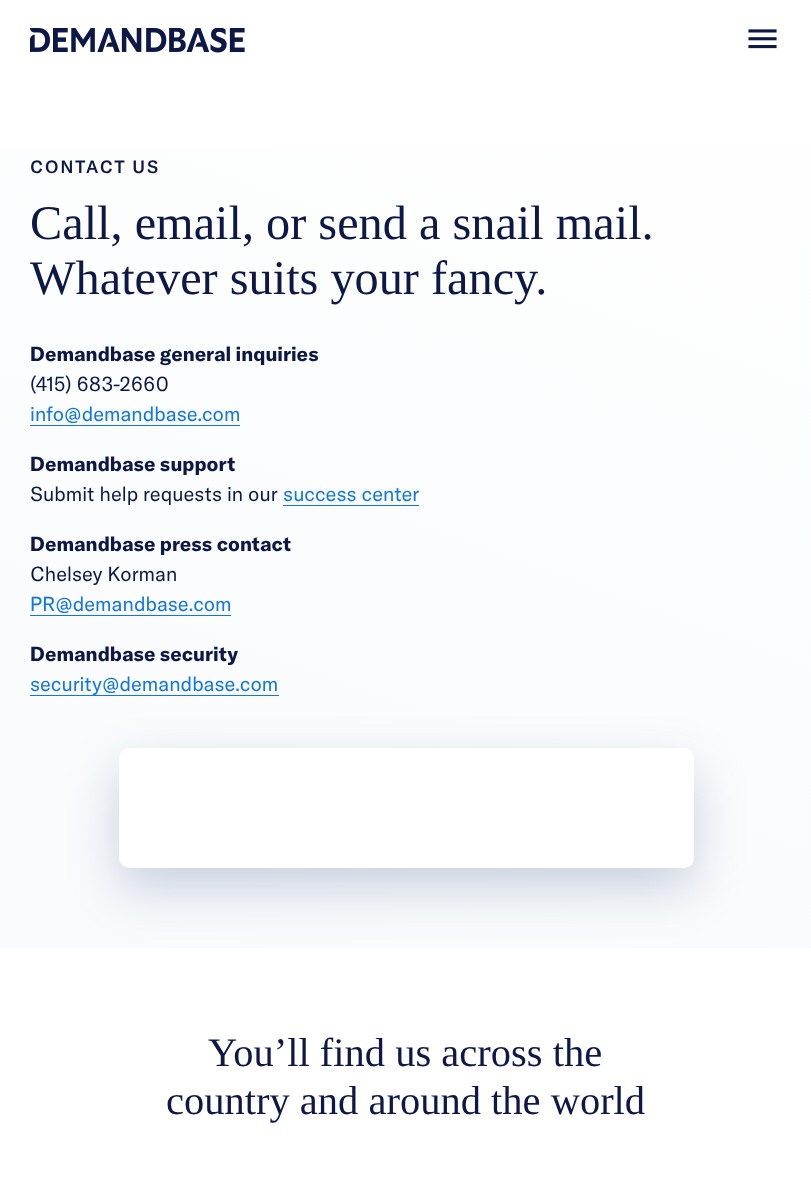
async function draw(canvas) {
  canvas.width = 811
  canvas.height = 1200
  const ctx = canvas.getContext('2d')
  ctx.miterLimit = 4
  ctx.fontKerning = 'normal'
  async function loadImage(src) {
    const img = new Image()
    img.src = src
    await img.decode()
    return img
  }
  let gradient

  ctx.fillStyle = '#fff'
  ctx.fillRect(0, 0, 811, 1200)
  ctx.drawImage(await loadImage('image0.png'), 30, 28, 215, 25)
  ctx.drawImage(await loadImage('image1.png'), 748, 29, 29, 20)
  gradient = ctx.createLinearGradient(605, -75, 206, 1022)
  gradient.addColorStop(0, '#fff')
  gradient.addColorStop(1, '#f8fafc')
  ctx.fillStyle = gradient
  ctx.fillRect(0, 149, 811, 799)
  ctx.letterSpacing = '1.75px'
  ctx.font = '500 17.5px GT America'
  ctx.fillStyle = '#0d1846'
  ctx.fillText('CONTACT US', 30, 173)
  ctx.letterSpacing = '0px'
  ctx.font = '48.3px Liberation Serif'
  ctx.fillText('Call, email, or send a snail mail.', 30, 239)
  ctx.fillText('Whatever suits your fancy.', 30, 294)
  ctx.font = 'bold 20px GT America'
  ctx.fillText('Demandbase general inquiries', 30, 361)
  ctx.font = '20px GT America'
  ctx.fillText('(415) 683-2660', 30, 391)
  ctx.fillStyle = '#1076e1'
  ctx.fillText('info@demandbase.com', 30, 421)
  ctx.fillRect(30, 425, 210, 1)
  ctx.font = 'bold 20px GT America'
  ctx.fillStyle = '#0d1846'
  ctx.fillText('Demandbase support', 30, 471)
  ctx.font = '20px GT America'
  ctx.fillText('Submit help requests in our', 30, 501)
  ctx.fillStyle = '#1076e1'
  ctx.fillText('success center', 283, 501)
  ctx.fillRect(283, 505, 136, 1)
  ctx.font = 'bold 20px GT America'
  ctx.fillStyle = '#0d1846'
  ctx.fillText('Demandbase press contact', 30, 551)
  ctx.font = '20px GT America'
  ctx.fillText('Chelsey Korman', 30, 581)
  ctx.fillStyle = '#1076e1'
  ctx.fillText('PR@demandbase.com', 30, 611)
  ctx.fillRect(30, 615, 201, 1)
  ctx.font = 'bold 20px GT America'
  ctx.fillStyle = '#0d1846'
  ctx.fillText('Demandbase security', 30, 661)
  ctx.font = '20px GT America'
  ctx.fillStyle = '#1076e1'
  ctx.fillText('security@demandbase.com', 30, 691)
  ctx.fillRect(30, 695, 249, 1)
  ctx.fillStyle = '#0b266633'
  ctx.filter = 'blur(25px)'
  ctx.beginPath()
  ctx.roundRect(119, 768, 575, 120, 10)
  ctx.fill()
  ctx.filter = 'none'
  ctx.fillStyle = '#fff'
  ctx.beginPath()
  ctx.roundRect(119, 748, 575, 120, 10)
  ctx.fill()
  ctx.font = '40.5px Liberation Serif'
  ctx.fillStyle = '#0d1846'
  ctx.fillText('You’ll find us across the', 208, 1066)
  ctx.fillText('country and around the world', 166, 1114)
}

draw(document.querySelector('canvas'))
